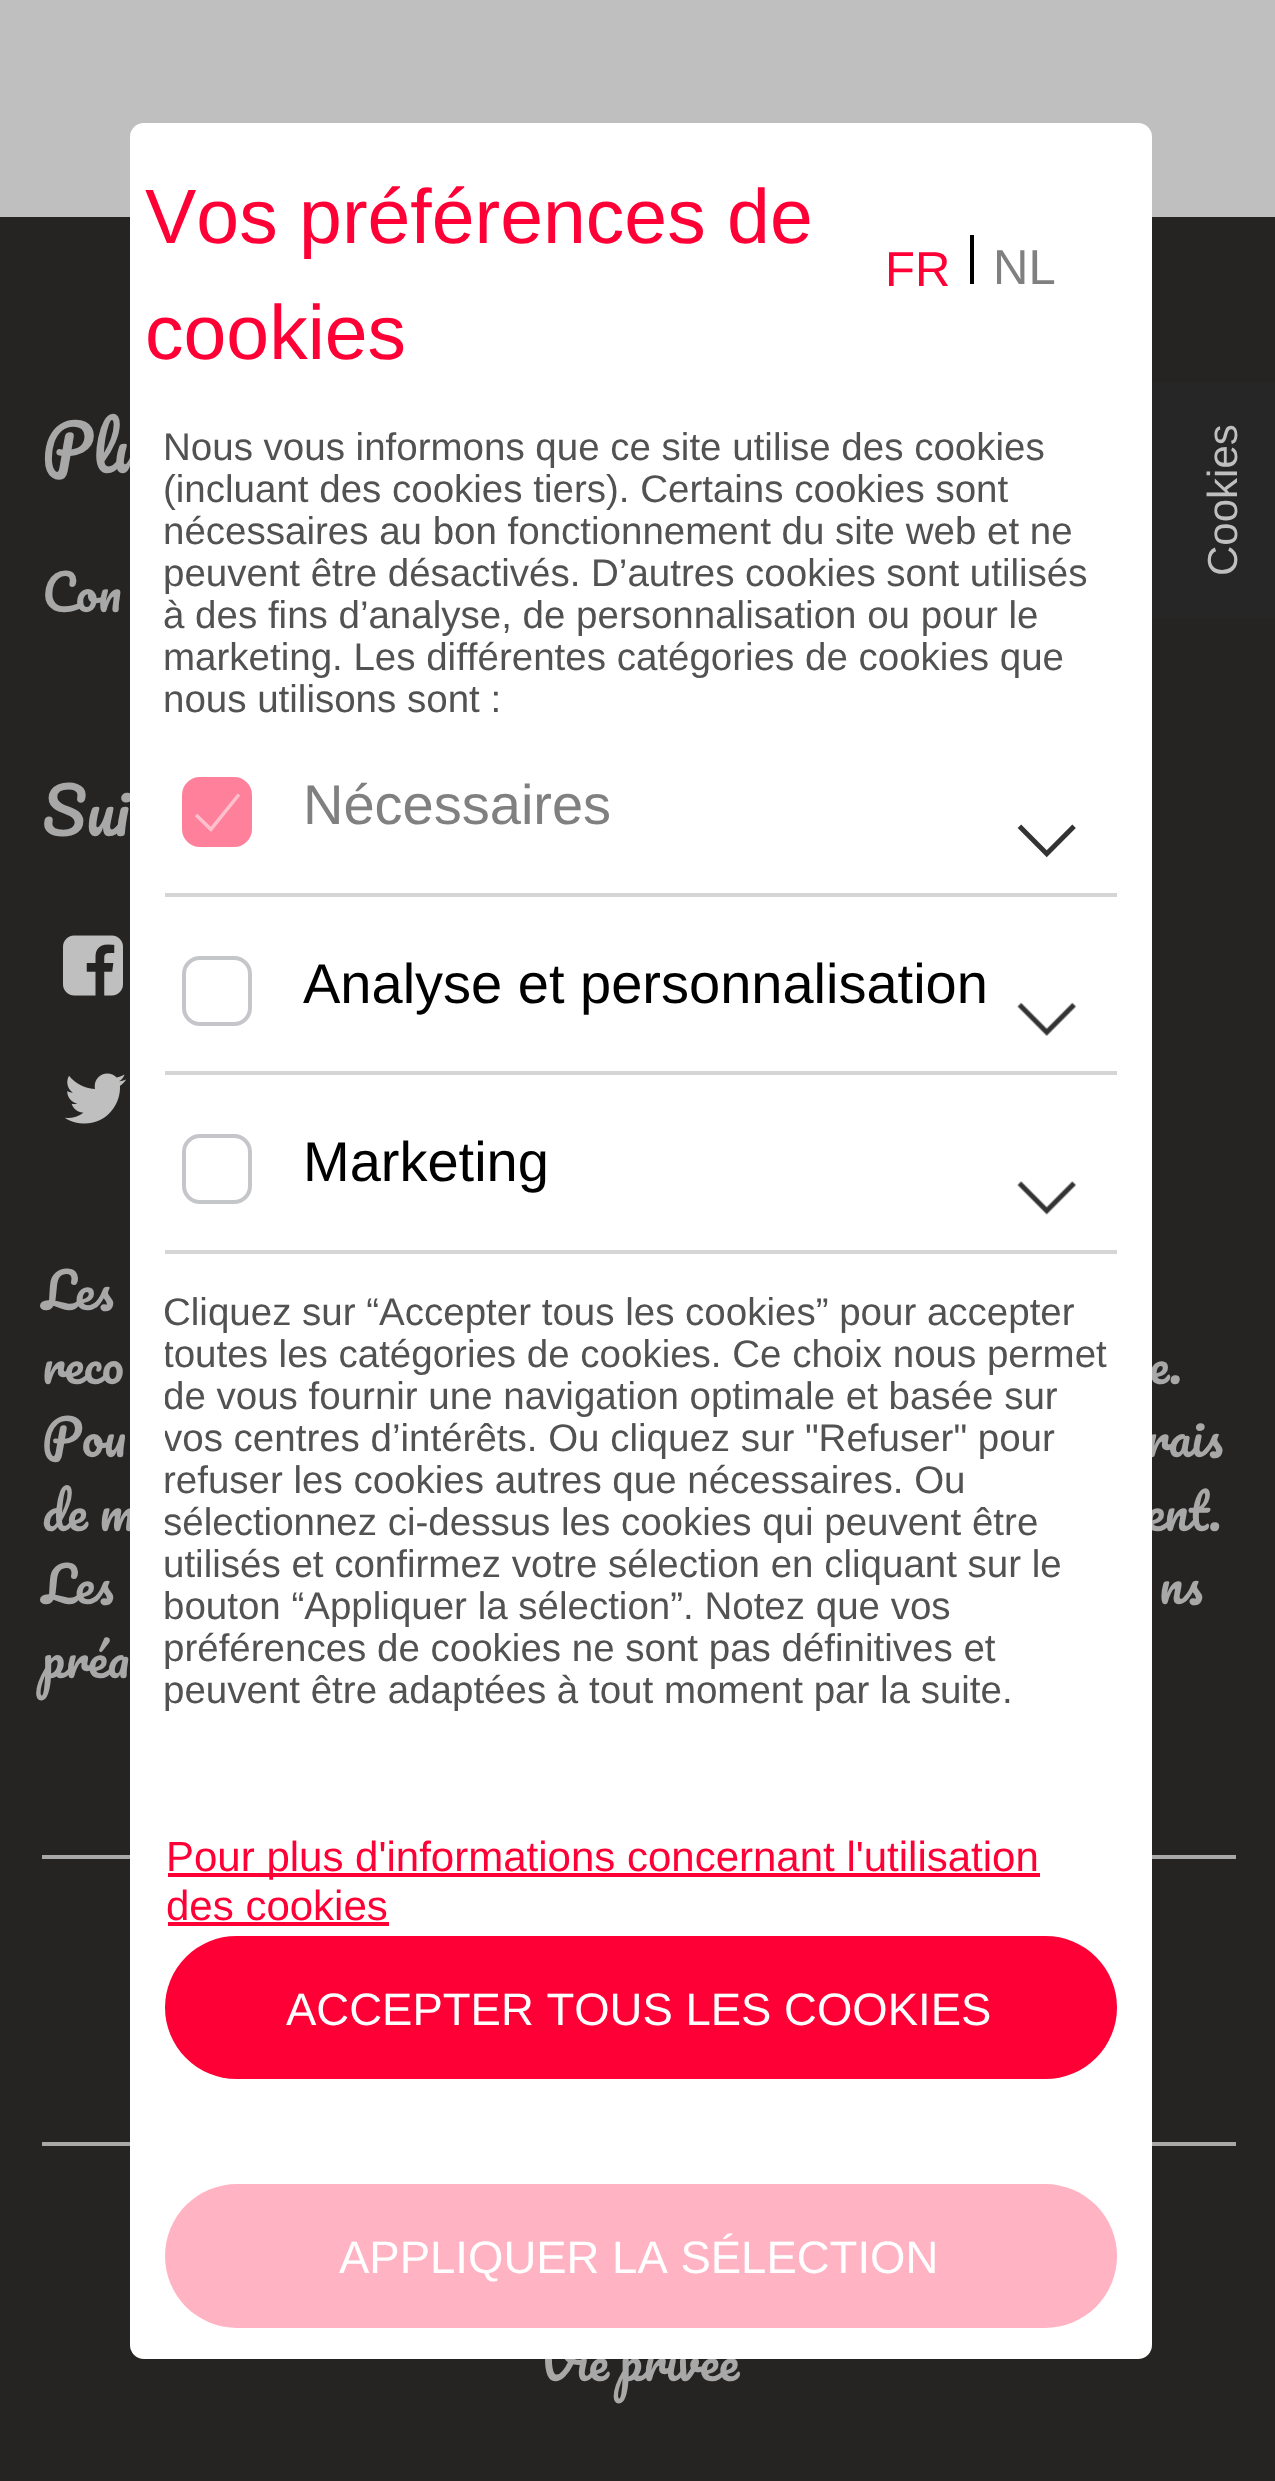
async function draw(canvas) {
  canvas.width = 1275
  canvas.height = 2481
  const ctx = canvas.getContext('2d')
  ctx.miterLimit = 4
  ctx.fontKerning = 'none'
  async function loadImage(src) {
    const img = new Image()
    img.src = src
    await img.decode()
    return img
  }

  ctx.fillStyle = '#bfbfbf'
  ctx.fillRect(0, 0, 1275, 2481)
  ctx.fillStyle = '#262423'
  ctx.fillRect(0, 217, 1275, 2264)
  ctx.wordSpacing = '6px'
  ctx.font = '63px Pacifico'
  ctx.fillStyle = '#a8a8a8'
  ctx.fillText('Plu', 42, 473)
  ctx.wordSpacing = '4px'
  ctx.fillText('Sui', 42, 836)
  ctx.wordSpacing = '0px'
  ctx.font = '49px Pacifico'
  ctx.fillText('e.', 1149, 1384)
  ctx.wordSpacing = '-1px'
  ctx.fillText('rais', 1146, 1457)
  ctx.fillText('de m', 42, 1531)
  ctx.fillText('ent.', 1145, 1531)
  ctx.fillRect(42, 1855, 1194, 4)
  ctx.fillRect(42, 2142, 1194, 4)
  ctx.wordSpacing = '-2px'
  ctx.fillText('Vie privée', 539, 2381)
  ctx.fillStyle = '#262626'
  ctx.beginPath()
  ctx.moveTo(1142, 611)
  ctx.lineTo(1142, 390)
  ctx.bezierCurveTo(1142, 386, 1145, 383, 1149, 383)
  ctx.lineTo(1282, 383)
  ctx.lineTo(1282, 618)
  ctx.lineTo(1149, 618)
  ctx.bezierCurveTo(1145, 618, 1142, 615, 1142, 611)
  ctx.closePath()
  ctx.fill()
  ctx.fillStyle = '#fff'
  ctx.beginPath()
  ctx.roundRect(130, 123, 1022, 2236, 14)
  ctx.fill()
  ctx.wordSpacing = '0px'
  ctx.font = '77px Liberation Sans'
  ctx.fillStyle = '#ff0036'
  ctx.fillText('Vos préférences de', 145, 243)
  ctx.fillText('cookies', 145, 359)
  ctx.font = '49px Liberation Sans'
  ctx.fillText('FR', 885, 286)
  ctx.fillStyle = '#000'
  ctx.fillRect(970, 235, 4, 49)
  ctx.fillStyle = '#808080'
  ctx.fillText('NL', 993, 284)
  ctx.font = '38.5px Liberation Sans'
  ctx.fillStyle = '#525252'
  ctx.fillText('Nous vous informons que ce site utilise des cookies', 163, 460)
  ctx.fillText('(incluant des cookies tiers). Certains cookies sont', 163, 502)
  ctx.fillText('nécessaires au bon fonctionnement du site web et ne', 163, 544)
  ctx.fillText('peuvent être désactivés. D’autres cookies sont utilisés', 163, 586)
  ctx.fillText('à des fins d’analyse, de personnalisation ou pour le', 163, 628)
  ctx.fillText('marketing. Les différentes catégories de cookies que', 163, 670)
  ctx.fillText('nous utilisons sont :', 163, 712)
  ctx.fillStyle = '#ff809b'
  ctx.beginPath()
  ctx.roundRect(184, 779, 66, 66, 16)
  ctx.fill()
  ctx.strokeStyle = '#ff809b'
  ctx.lineWidth = 4
  ctx.stroke()
  ctx.drawImage(await loadImage('image0.png'), 195, 793, 46, 39)
  ctx.font = '56px Liberation Sans'
  ctx.fillStyle = '#808080'
  ctx.fillText('Nécessaires', 303, 824)
  ctx.drawImage(await loadImage('image1.png'), 1017, 824, 59, 34)
  ctx.fillStyle = '#d5d5d5'
  ctx.fillRect(165, 893, 952, 4)
  ctx.beginPath()
  ctx.roundRect(184, 958, 66, 66, 16)
  ctx.strokeStyle = '#c4c6c9'
  ctx.stroke()
  ctx.fillStyle = '#000'
  ctx.fillText('Analyse et personnalisation', 303, 1003)
  ctx.drawImage(await loadImage('image2.png'), 1017, 1002, 60, 34)
  ctx.fillStyle = '#d5d5d5'
  ctx.fillRect(165, 1071, 952, 4)
  ctx.beginPath()
  ctx.roundRect(184, 1136, 66, 66, 16)
  ctx.stroke()
  ctx.fillStyle = '#000'
  ctx.fillText('Marketing', 303, 1181)
  ctx.drawImage(await loadImage('image3.png'), 1017, 1181, 60, 34)
  ctx.fillStyle = '#d5d5d5'
  ctx.fillRect(165, 1250, 952, 4)
  ctx.save()
  ctx.beginPath()
  ctx.rect(165, 753, 952, 973)
  ctx.clip()
  ctx.font = '38.5px Liberation Sans'
  ctx.fillStyle = '#525252'
  ctx.fillText('Cliquez sur “Accepter tous les cookies” pour accepter', 163, 1325)
  ctx.fillText('toutes les catégories de cookies. Ce choix nous permet', 163, 1367)
  ctx.fillText('de vous fournir une navigation optimale et basée sur', 163, 1409)
  ctx.fillText('vos centres d’intérêts. Ou cliquez sur "Refuser" pour', 163, 1451)
  ctx.restore()
  ctx.font = '38.5px Liberation Sans'
  ctx.fillStyle = '#525252'
  ctx.fillText('refuser les cookies autres que nécessaires. Ou', 163, 1493)
  ctx.save()
  ctx.beginPath()
  ctx.rect(165, 753, 952, 973)
  ctx.clip()
  ctx.fillText('sélectionnez ci-dessus les cookies qui peuvent être', 163, 1535)
  ctx.restore()
  ctx.fillText('utilisés et confirmez votre sélection en cliquant sur le', 163, 1577)
  ctx.fillText('bouton “Appliquer la sélection”. Notez que vos', 163, 1619)
  ctx.fillText('préférences de cookies ne sont pas définitives et', 163, 1661)
  ctx.fillText('peuvent être adaptées à tout moment par la suite.', 163, 1703)
  ctx.fillStyle = '#ff0036'
  ctx.fillRect(168, 1873, 872, 4)
  ctx.font = '42px Liberation Sans'
  ctx.fillText('Pour plus d\'informations concernant l\'utilisation', 166, 1871)
  ctx.fillText('des cookies', 166, 1920)
  ctx.fillRect(168, 1922, 221, 4)
  ctx.beginPath()
  ctx.roundRect(165, 1936, 952, 143, 71.5)
  ctx.fill()
  ctx.font = '45.5px Liberation Sans'
  ctx.fillStyle = '#fff'
  ctx.fillText('ACCEPTER TOUS LES COOKIES', 286, 2025)
  ctx.fillStyle = '#ffb3c3'
  ctx.beginPath()
  ctx.roundRect(165, 2184, 952, 144, 72)
  ctx.fill()
  ctx.fillStyle = '#fff'
  ctx.fillText('APPLIQUER LA SÉLECTION', 339, 2273)
  ctx.font = '49px Pacifico'
  ctx.fillStyle = '#a8a8a8'
  ctx.fillText('Con', 42, 612)
  ctx.drawImage(await loadImage('image4.png'), 63, 935, 60, 61)
  ctx.drawImage(await loadImage('image5.png'), 65, 1073, 62, 51)
  ctx.wordSpacing = '-1px'
  ctx.fillText('Les', 42, 1310)
  ctx.wordSpacing = '0px'
  ctx.fillText('reco', 42, 1384)
  ctx.wordSpacing = '-1px'
  ctx.fillText('Pou', 42, 1457)
  ctx.wordSpacing = '1px'
  ctx.fillText('Les', 42, 1604)
  ctx.fillText('ns', 1159, 1604)
  ctx.wordSpacing = '0px'
  ctx.fillText('préa', 42, 1678)
  ctx.font = '42px Liberation Sans'
  ctx.fillStyle = '#bfbfbf'
  ctx.save()
  ctx.translate(1237, 576)
  ctx.rotate(-90 * Math.PI / 180)
  ctx.fillText('Cookies', 0, 0)
  ctx.restore()
}

draw(document.querySelector('canvas'))
